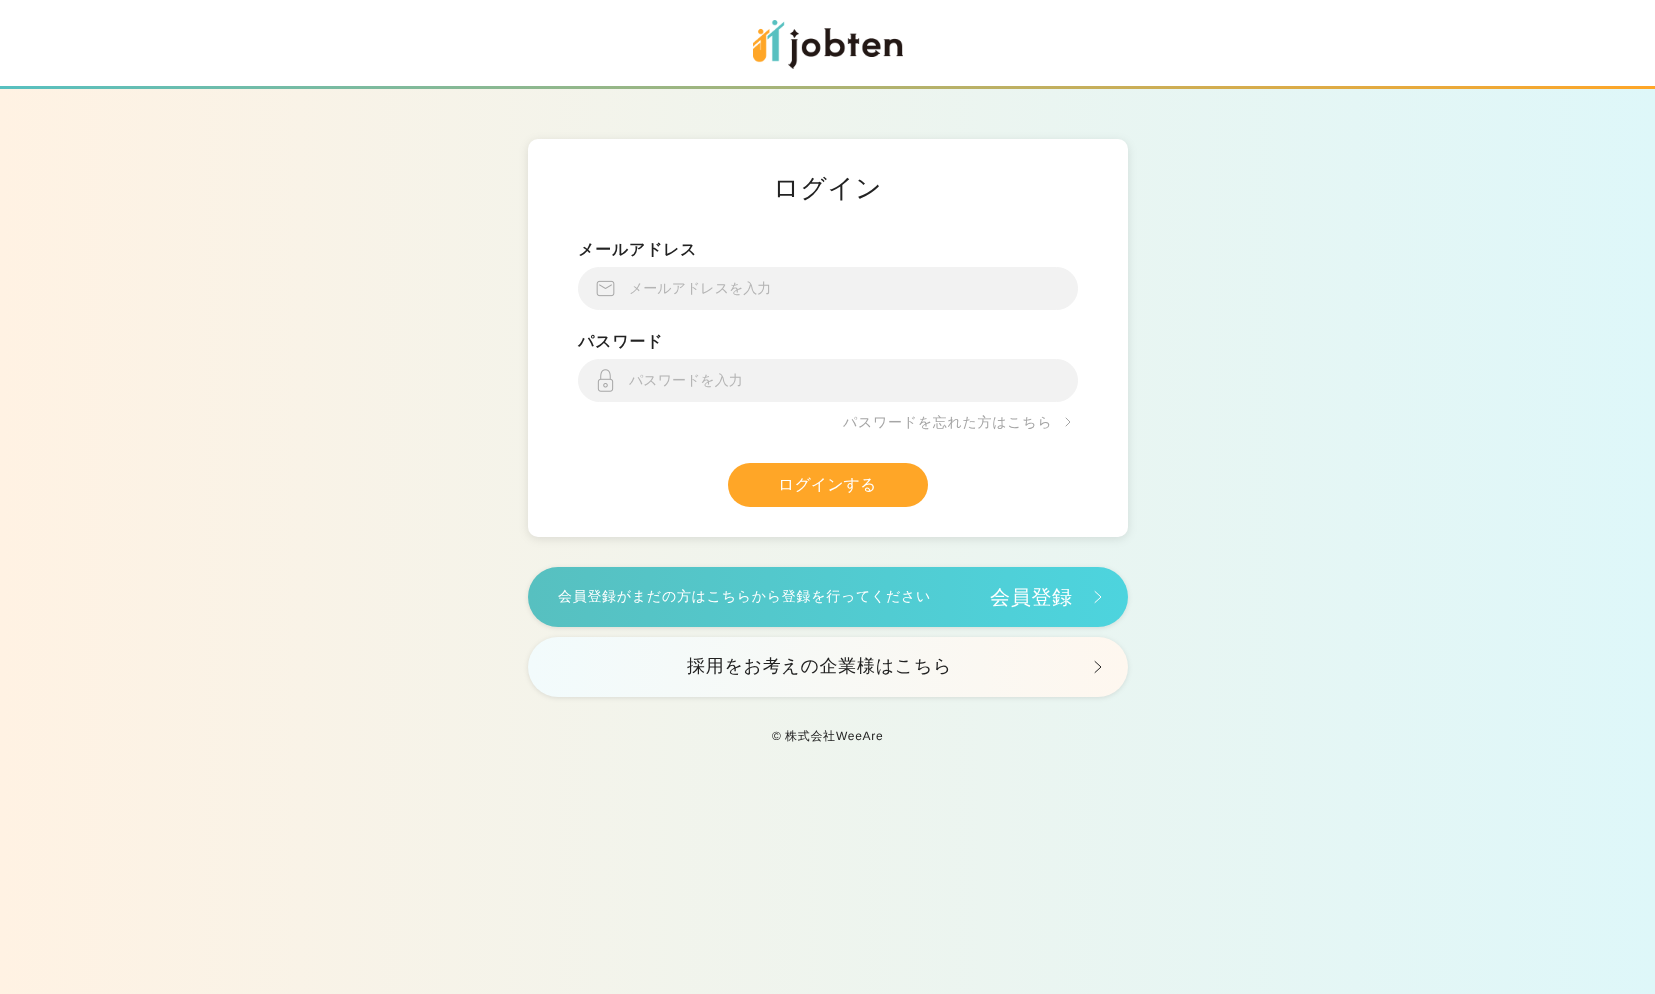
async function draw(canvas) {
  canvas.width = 1655
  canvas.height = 994
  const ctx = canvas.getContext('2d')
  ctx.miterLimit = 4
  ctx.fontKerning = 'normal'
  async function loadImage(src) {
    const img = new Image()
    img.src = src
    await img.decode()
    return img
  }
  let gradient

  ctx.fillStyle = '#fff'
  ctx.fillRect(0, 0, 1655, 994)
  gradient = ctx.createLinearGradient(0, 497, 1655, 497)
  gradient.addColorStop(0, '#fff2e3')
  gradient.addColorStop(1, '#def7f9')
  ctx.fillStyle = gradient
  ctx.fillRect(0, 89, 1655, 905)
  gradient = ctx.createLinearGradient(0, 88, 1655, 87)
  gradient.addColorStop(0, '#57c0c0')
  gradient.addColorStop(1, '#ffa627')
  ctx.fillStyle = gradient
  ctx.fillRect(0, 86, 1655, 3)
  ctx.drawImage(await loadImage('image0.png'), 753, 20, 150, 49)
  ctx.fillStyle = '#0000001a'
  ctx.filter = 'blur(5px)'
  ctx.beginPath()
  ctx.roundRect(528, 141, 600, 398, 10)
  ctx.fill()
  ctx.filter = 'none'
  ctx.fillStyle = '#fff'
  ctx.beginPath()
  ctx.roundRect(528, 139, 600, 398, 10)
  ctx.fill()
  ctx.letterSpacing = '0.7px'
  ctx.font = '500 26px WenQuanYi Zen Hei'
  ctx.fillStyle = '#222'
  ctx.fillText('ログイン', 773, 197)
  ctx.font = 'bold 16px WenQuanYi Zen Hei'
  ctx.fillText('メールアドレス', 578, 255)
  ctx.fillStyle = '#f2f2f2'
  ctx.beginPath()
  ctx.roundRect(578.5, 267.5, 499, 42, 21)
  ctx.fill()
  ctx.strokeStyle = '#f2f2f2'
  ctx.stroke()
  ctx.drawImage(await loadImage('image1.png'), 596, 280, 19, 17)
  ctx.letterSpacing = '0px'
  ctx.font = '500 14px WenQuanYi Zen Hei'
  ctx.fillStyle = '#b4b4b4'
  ctx.fillText('メールアドレスを入力', 629, 293)
  ctx.letterSpacing = '0.7px'
  ctx.font = 'bold 16px WenQuanYi Zen Hei'
  ctx.fillStyle = '#222'
  ctx.fillText('パスワード', 578, 347)
  ctx.fillStyle = '#f2f2f2'
  ctx.beginPath()
  ctx.roundRect(578.5, 359.5, 499, 42, 21)
  ctx.fill()
  ctx.stroke()
  ctx.drawImage(await loadImage('image2.png'), 597, 369, 17, 23)
  ctx.letterSpacing = '0px'
  ctx.font = '500 14px WenQuanYi Zen Hei'
  ctx.fillStyle = '#b4b4b4'
  ctx.fillText('パスワードを入力', 629, 385)
  ctx.letterSpacing = '0.7px'
  ctx.fillStyle = '#a5a5a5'
  ctx.fillText('パスワードを忘れた方はこちら', 843, 427)
  ctx.beginPath()
  ctx.moveTo(1066, 426)
  ctx.lineTo(1070, 422)
  ctx.lineTo(1066, 418)
  ctx.strokeStyle = '#a5a5a5'
  ctx.lineCap = 'round'
  ctx.lineJoin = 'round'
  ctx.stroke()
  ctx.fillStyle = '#ffa627'
  ctx.beginPath()
  ctx.roundRect(728, 463, 200, 44, 22)
  ctx.fill()
  ctx.letterSpacing = '0px'
  ctx.font = '500 16px WenQuanYi Zen Hei'
  ctx.fillStyle = '#fff'
  ctx.fillText('ログインする', 778, 490)
  ctx.fillStyle = '#0000001a'
  ctx.filter = 'blur(2.5px)'
  ctx.beginPath()
  ctx.roundRect(528, 568, 600, 60, 30)
  ctx.fill()
  ctx.filter = 'none'
  gradient = ctx.createLinearGradient(528, 597, 1128, 597)
  gradient.addColorStop(0, '#57c0c0')
  gradient.addColorStop(1, '#4dd4de')
  ctx.fillStyle = gradient
  ctx.beginPath()
  ctx.roundRect(528, 567, 600, 60, 30)
  ctx.fill()
  ctx.letterSpacing = '0.7px'
  ctx.font = '500 14px WenQuanYi Zen Hei'
  ctx.fillStyle = '#fff'
  ctx.fillText('会員登録がまだの方はこちらから登録を行ってください', 558, 601)
  ctx.font = '500 20px WenQuanYi Zen Hei'
  ctx.fillText('会員登録', 990, 604)
  ctx.beginPath()
  ctx.moveTo(1095, 602.5)
  ctx.lineTo(1101, 597)
  ctx.lineTo(1095, 591.5)
  ctx.strokeStyle = '#fff'
  ctx.stroke()
  ctx.fillStyle = '#0000001a'
  ctx.filter = 'blur(2.5px)'
  ctx.beginPath()
  ctx.roundRect(528, 638, 600, 60, 30)
  ctx.fill()
  ctx.filter = 'none'
  gradient = ctx.createLinearGradient(528, 667, 1128, 667)
  gradient.addColorStop(0, '#f2fbfc')
  gradient.addColorStop(1, '#fef7ef')
  ctx.fillStyle = gradient
  ctx.beginPath()
  ctx.roundRect(528, 637, 600, 60, 30)
  ctx.fill()
  ctx.font = '500 18px WenQuanYi Zen Hei'
  ctx.fillStyle = '#222'
  ctx.fillText('採用をお考えの企業様はこちら', 687, 672)
  ctx.beginPath()
  ctx.moveTo(1095, 672.5)
  ctx.lineTo(1101, 667)
  ctx.lineTo(1095, 661.5)
  ctx.strokeStyle = '#222'
  ctx.stroke()
  ctx.font = '12px Liberation Sans'
  ctx.fillText('©', 772, 740)
  ctx.font = '500 12px WenQuanYi Zen Hei'
  ctx.fillText('株式会社', 785, 740)
  ctx.font = '12px Liberation Sans'
  ctx.fillText('WeeAre', 836, 740)
}

draw(document.querySelector('canvas'))
